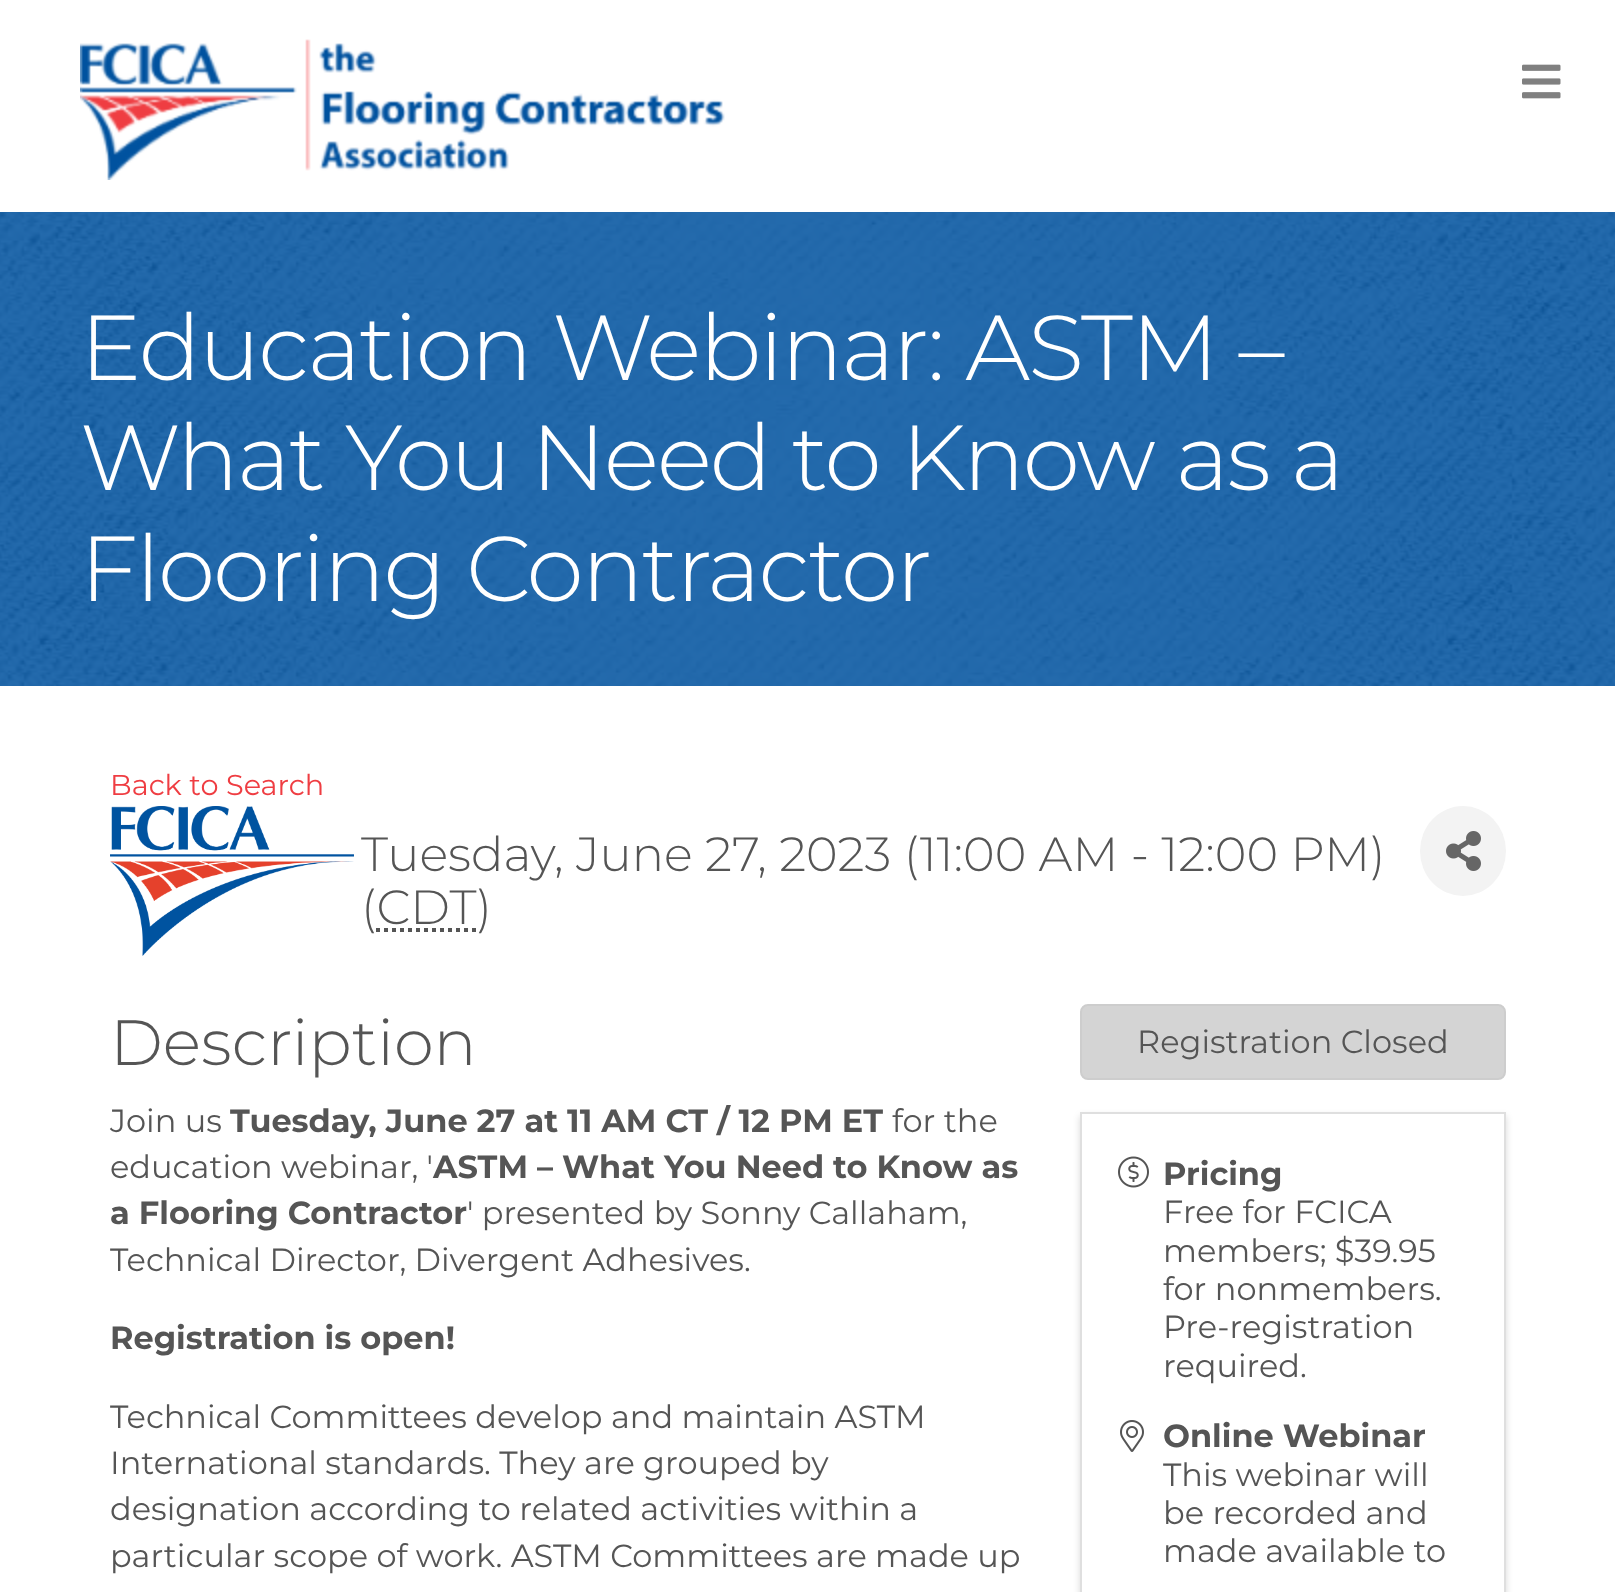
async function draw(canvas) {
  canvas.width = 1615
  canvas.height = 1592
  const ctx = canvas.getContext('2d')
  ctx.miterLimit = 4
  ctx.fontKerning = 'normal'
  async function loadImage(src) {
    const img = new Image()
    img.src = src
    await img.decode()
    return img
  }

  ctx.fillStyle = '#fff'
  ctx.fillRect(0, 0, 1615, 1592)
  ctx.drawImage(await loadImage('image0.png'), 80, 39, 645, 141)
  ctx.drawImage(await loadImage('image1.png'), 1522, 64, 39, 35)
  ctx.drawImage(await loadImage('image2.png'), 0, 212, 1615, 474)
  ctx.letterSpacing = '-2px'
  ctx.font = '300 92px Montserrat'
  ctx.fillText('Education Webinar: ASTM –', 80, 380)
  ctx.fillText('What You Need to Know as a', 80, 490)
  ctx.fillText('Flooring Contractor', 80, 601)
  ctx.letterSpacing = '0px'
  ctx.font = '28.75px Montserrat'
  ctx.fillStyle = '#ef3d42'
  ctx.fillText('Back to Search', 110, 795)
  ctx.drawImage(await loadImage('image3.png'), 110, 806, 244, 150)
  ctx.font = '300 48px Montserrat'
  ctx.fillStyle = '#555'
  ctx.fillText('Tuesday, June 27, 2023 (11:00 AM - 12:00 PM)', 361, 871)
  ctx.fillText('(CDT)', 361, 924)
  ctx.beginPath()
  ctx.moveTo(376, 930)
  ctx.lineTo(476, 930)
  ctx.strokeStyle = '#555'
  ctx.lineWidth = 4
  ctx.setLineDash([4, 4])
  ctx.stroke()
  ctx.fillStyle = '#f3f3f3'
  ctx.beginPath()
  ctx.ellipse(1463, 851, 43, 45, 0, 0, 2 * Math.PI)
  ctx.fill()
  ctx.drawImage(await loadImage('image4.png'), 1446, 831, 35, 40)
  ctx.font = '300 64px Montserrat'
  ctx.fillStyle = '#555'
  ctx.fillText('Description', 110, 1065)
  ctx.font = '32px Montserrat'
  ctx.fillText('Join us', 110, 1132)
  ctx.font = 'bold 32px Montserrat'
  ctx.fillText('Tuesday, June 27 at 11 AM CT / 12 PM ET', 230, 1132)
  ctx.font = '32px Montserrat'
  ctx.fillText('for the', 892, 1132)
  ctx.fillText('education webinar, \'', 110, 1178)
  ctx.font = 'bold 32px Montserrat'
  ctx.fillText('ASTM – What You Need to Know as', 433, 1178)
  ctx.fillText('a Flooring Contractor', 110, 1224)
  ctx.font = '32px Montserrat'
  ctx.fillText('\' presented by Sonny Callaham,', 467, 1224)
  ctx.fillText('Technical Director, Divergent Adhesives.', 110, 1271)
  ctx.font = 'bold 32px Montserrat'
  ctx.fillText('Registration is open!', 110, 1349)
  ctx.font = '32px Montserrat'
  ctx.fillText('Technical Committees develop and maintain ASTM', 110, 1428)
  ctx.fillText('International standards. They are grouped by', 110, 1474)
  ctx.fillText('designation according to related activities within a', 110, 1520)
  ctx.fillText('particular scope of work. ASTM Committees are made up', 110, 1567)
  ctx.fillStyle = '#d4d4d4'
  ctx.beginPath()
  ctx.roundRect(1081, 1005, 424, 74, 7)
  ctx.fill()
  ctx.strokeStyle = '#cdcdcd'
  ctx.lineWidth = 2
  ctx.setLineDash([])
  ctx.stroke()
  ctx.fillStyle = '#555'
  ctx.fillText('Registration Closed', 1137, 1053)
  ctx.save()
  ctx.beginPath()
  ctx.moveTo(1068, 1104)
  ctx.lineTo(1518, 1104)
  ctx.lineTo(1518, 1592)
  ctx.lineTo(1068, 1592)
  ctx.closePath()
  ctx.moveTo(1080, 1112)
  ctx.lineTo(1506, 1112)
  ctx.lineTo(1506, 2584)
  ctx.lineTo(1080, 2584)
  ctx.closePath()
  ctx.clip('evenodd')
  ctx.fillStyle = '#00000026'
  ctx.filter = 'blur(3.5px)'
  ctx.beginPath()
  ctx.rect(1080, 1116, 426, 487)
  ctx.fill()
  ctx.filter = 'none'
  ctx.restore()
  ctx.strokeStyle = '#dfdfdf'
  ctx.strokeRect(1081, 1113, 424, 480)
  ctx.drawImage(await loadImage('image5.png'), 1118, 1156, 31, 32)
  ctx.font = 'bold 32px Montserrat'
  ctx.fillText('Pricing', 1163, 1185)
  ctx.font = '32px Montserrat'
  ctx.fillText('Free for FCICA', 1163, 1223)
  ctx.fillText('members; $39.95', 1163, 1262)
  ctx.fillText('for nonmembers.', 1163, 1300)
  ctx.fillText('Pre-registration', 1163, 1338)
  ctx.fillText('required.', 1163, 1377)
  ctx.drawImage(await loadImage('image6.png'), 1120, 1420, 24, 32)
  ctx.font = 'bold 32px Montserrat'
  ctx.fillText('Online Webinar', 1163, 1447)
  ctx.font = '32px Montserrat'
  ctx.fillText('This webinar will', 1163, 1486)
  ctx.fillText('be recorded and', 1163, 1524)
  ctx.fillText('made available to', 1163, 1562)
}

draw(document.querySelector('canvas'))
